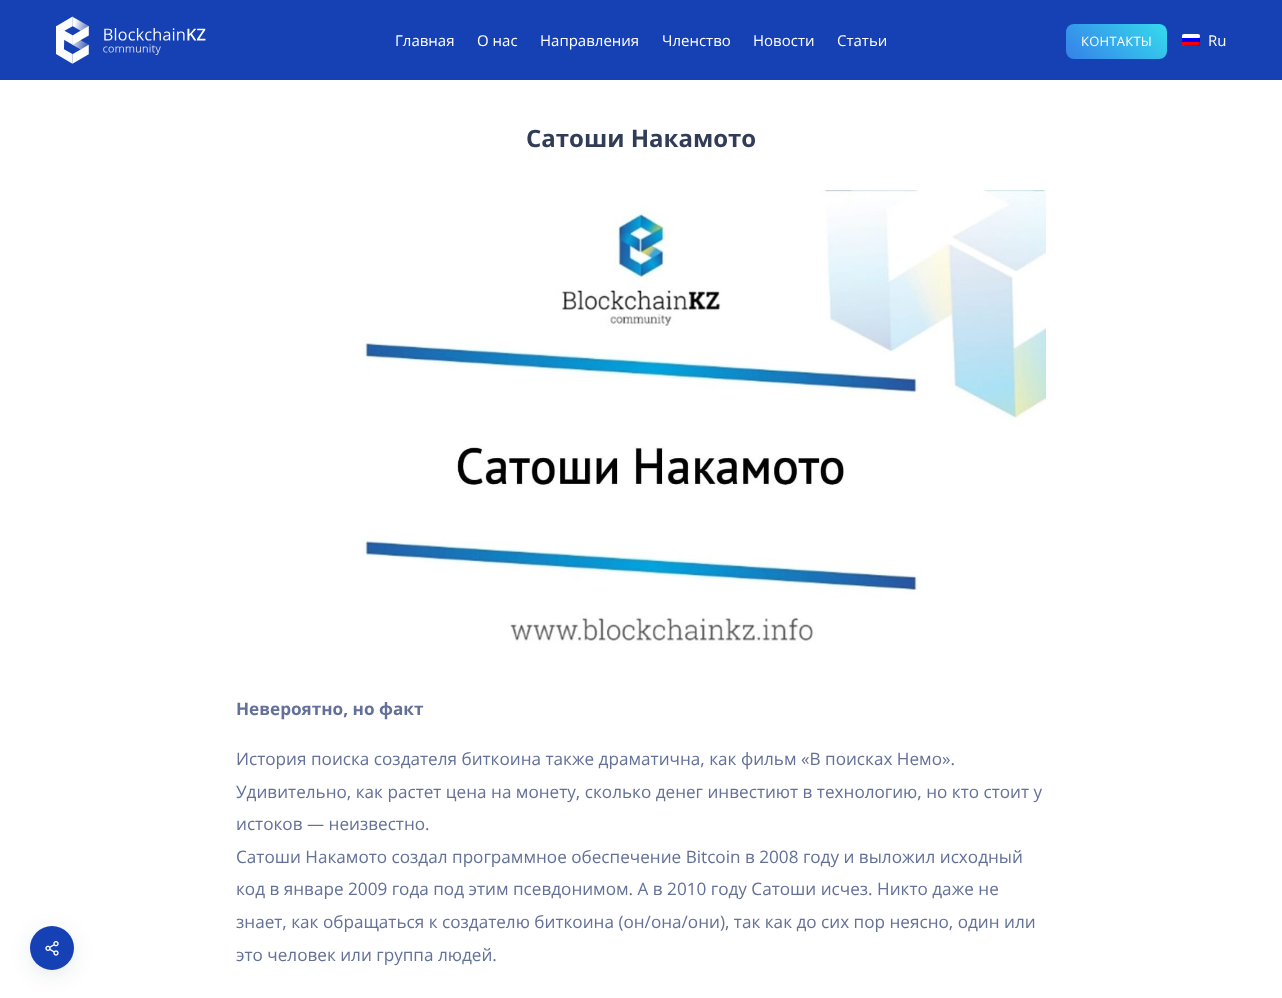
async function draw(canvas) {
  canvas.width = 1282
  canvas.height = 998
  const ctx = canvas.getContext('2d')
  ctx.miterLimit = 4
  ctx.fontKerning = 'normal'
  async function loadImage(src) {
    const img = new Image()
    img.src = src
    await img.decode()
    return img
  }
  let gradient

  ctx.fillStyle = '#fff'
  ctx.fillRect(0, 0, 1282, 998)
  ctx.fillStyle = '#091f4326'
  ctx.filter = 'blur(12.5px)'
  ctx.beginPath()
  ctx.roundRect(34, 935, 36, 36, 18)
  ctx.fill()
  ctx.filter = 'none'
  ctx.fillStyle = '#1641b5'
  ctx.beginPath()
  ctx.arc(52, 948, 22, 0, 2 * Math.PI)
  ctx.fill()
  ctx.drawImage(await loadImage('image0.png'), 45, 941, 14, 15)
  ctx.fillRect(0, 0, 1282, 80)
  ctx.drawImage(await loadImage('image1.png'), 56, 16, 150, 48)
  ctx.font = '15px Open Sans'
  ctx.fillStyle = '#fff'
  ctx.fillText('Главная', 395, 46)
  ctx.fillText('О нас', 477, 46)
  ctx.fillText('Направления', 540, 46)
  ctx.fillText('Членство', 662, 46)
  ctx.fillText('Новости', 753, 46)
  ctx.fillText('Статьи', 837, 46)
  gradient = ctx.createLinearGradient(1083, 76, 1151, 7.5)
  gradient.addColorStop(0, '#3580e9')
  gradient.addColorStop(1, '#35dcee')
  ctx.fillStyle = gradient
  ctx.beginPath()
  ctx.roundRect(1066, 24, 101, 35, 8)
  ctx.fill()
  ctx.letterSpacing = '0.25px'
  ctx.font = '13px Open Sans'
  ctx.fillStyle = '#fff'
  ctx.fillText('КОНТАКТЫ', 1081, 46)
  ctx.drawImage(await loadImage('image2.png'), 1182, 34, 18, 12)
  ctx.letterSpacing = '0px'
  ctx.font = '15px Open Sans'
  ctx.fillText('Ru', 1208, 46)
  ctx.font = 'bold 24px Open Sans'
  ctx.fillStyle = '#313c56'
  ctx.fillText('Сатоши Накамото', 526, 147)
  ctx.drawImage(await loadImage('image3.png'), 362, 190, 684, 454)
  ctx.font = 'bold 17.15px Open Sans'
  ctx.fillStyle = '#637097'
  ctx.fillText('Невероятно, но факт', 236, 715)
  ctx.font = '17.15px Open Sans'
  ctx.fillText('История поиска создателя биткоина также драматична, как фильм «В поисках Немо».', 236, 765)
  ctx.fillText('Удивительно, как растет цена на монету, сколько денег инвестиют в технологию, но кто стоит у', 236, 798)
  ctx.fillText('истоков — неизвестно.', 236, 830)
  ctx.fillText('Сатоши Накамото создал программное обеспечение Bitcoin в 2008 году и выложил исходный', 236, 863)
  ctx.fillText('код в январе 2009 года под этим псевдонимом. А в 2010 году Сатоши исчез. Никто даже не', 236, 895)
  ctx.fillText('знает, как обращаться к создателю биткоина (он/она/они), так как до сих пор неясно, один или', 236, 928)
  ctx.fillText('это человек или группа людей.', 236, 961)
}

draw(document.querySelector('canvas'))
